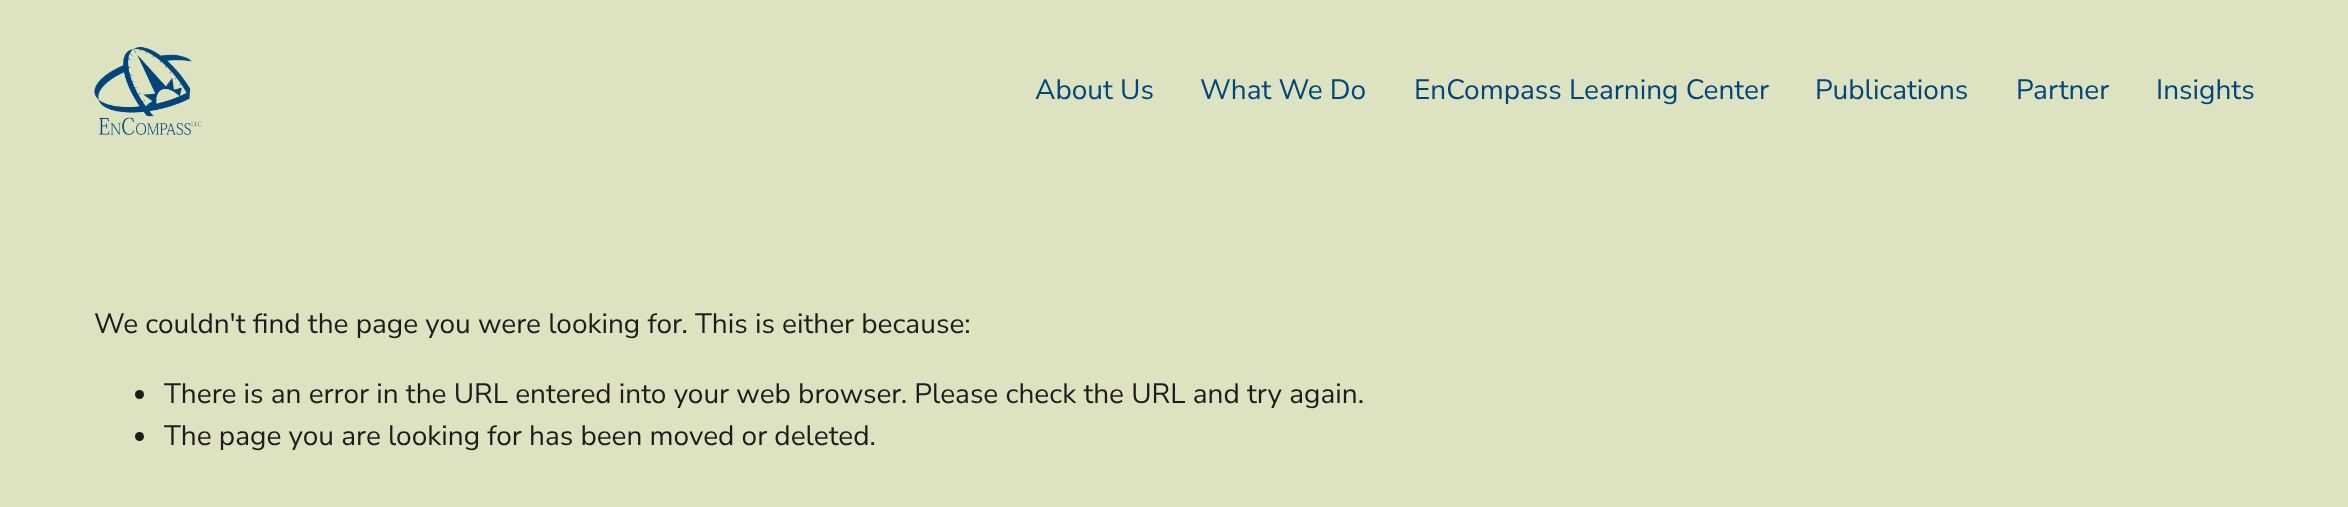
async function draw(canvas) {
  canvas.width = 2348
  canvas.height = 507
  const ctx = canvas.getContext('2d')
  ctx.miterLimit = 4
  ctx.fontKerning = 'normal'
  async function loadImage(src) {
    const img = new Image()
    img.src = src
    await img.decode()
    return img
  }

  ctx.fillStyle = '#dde3c0'
  ctx.fillRect(0, 0, 2348, 507)
  ctx.drawImage(await loadImage('image0.png'), 94, 47, 108, 88)
  ctx.font = '28px Nunito Sans'
  ctx.fillStyle = '#00457c'
  ctx.fillText('About Us', 1035, 99)
  ctx.fillText('What We Do', 1200, 99)
  ctx.fillText('EnCompass Learning Center', 1414, 99)
  ctx.fillText('Publications', 1815, 99)
  ctx.fillText('Partner', 2016, 99)
  ctx.fillText('Insights', 2156, 99)
  ctx.fillStyle = '#211a1d'
  ctx.fillText('We couldn\'t find the page you were looking for. This is either because:', 94, 333)
  ctx.beginPath()
  ctx.arc(139.5, 394.5, 4.5, 0, 2 * Math.PI)
  ctx.fill()
  ctx.fillText('There is an error in the URL entered into your web browser. Please check the URL and try again.', 164, 403)
  ctx.beginPath()
  ctx.arc(139.5, 436.5, 4.5, 0, 2 * Math.PI)
  ctx.fill()
  ctx.fillText('The page you are looking for has been moved or deleted.', 164, 445)
}

draw(document.querySelector('canvas'))
